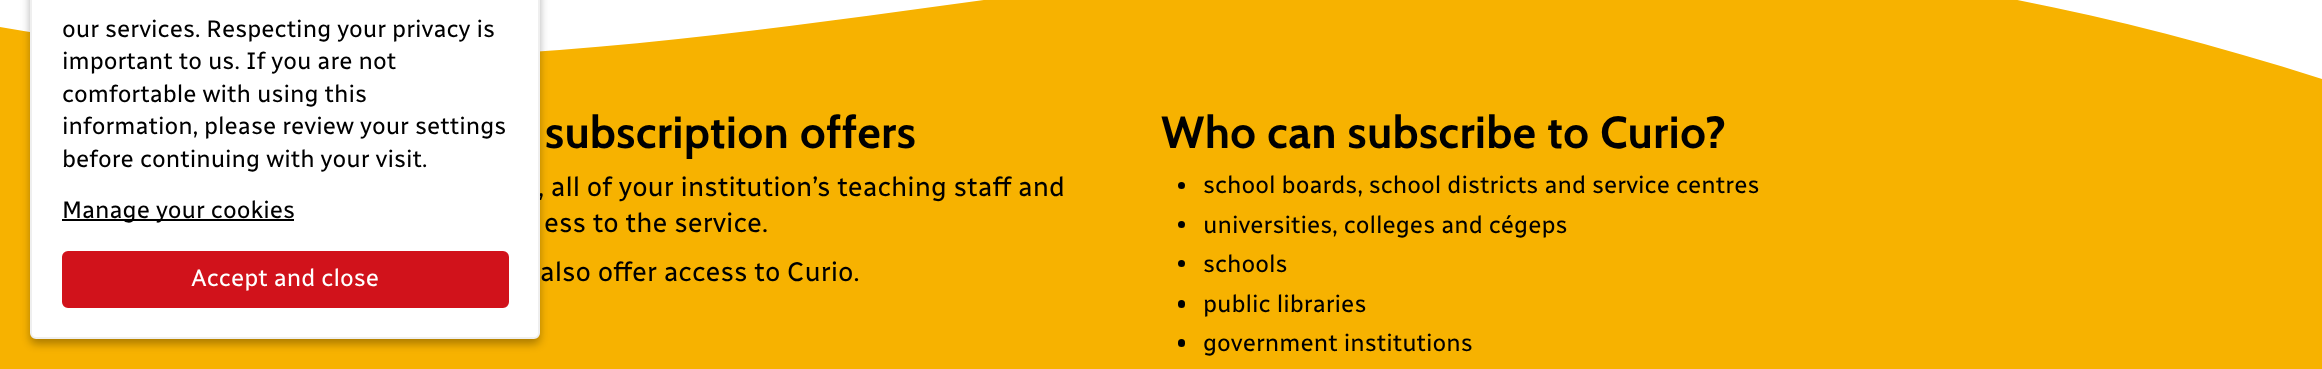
async function draw(canvas) {
  canvas.width = 2322
  canvas.height = 369
  const ctx = canvas.getContext('2d')
  ctx.miterLimit = 4
  ctx.fontKerning = 'normal'

  ctx.fillStyle = '#f7b200'
  ctx.fillRect(0, 0, 2322, 369)
  ctx.fillStyle = '#fff'
  ctx.fillRect(0, 0, 2322, 79)
  ctx.fillStyle = '#f7b200'
  ctx.beginPath()
  ctx.moveTo(2322, 79)
  ctx.bezierCurveTo(1325, -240, 805, 168, 0, 27)
  ctx.lineTo(0, 161)
  ctx.lineTo(2322, 161)
  ctx.closePath()
  ctx.fill()
  ctx.fillStyle = '#0000004d'
  ctx.filter = 'blur(4.5px)'
  ctx.beginPath()
  ctx.roundRect(30, -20, 510, 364, 6)
  ctx.fill()
  ctx.filter = 'none'
  ctx.font = '27px Radio Canada'
  ctx.fillStyle = '#000'
  ctx.fillText(', all of your institution’s teaching staff and', 538, 196)
  ctx.fillStyle = '#fff'
  ctx.beginPath()
  ctx.roundRect(31, -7, 508, 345, 5)
  ctx.fill()
  ctx.strokeStyle = '#efefef'
  ctx.lineWidth = 2
  ctx.stroke()
  ctx.font = '24px Radio Canada'
  ctx.fillStyle = '#000'
  ctx.fillText('our services. Respecting your privacy is', 62, 37)
  ctx.fillText('important to us. If you are not', 62, 69)
  ctx.fillText('comfortable with using this', 62, 102)
  ctx.fillText('information, please review your settings', 62, 134)
  ctx.fillText('before continuing with your visit.', 62, 167)
  ctx.fillRect(62, 219, 232, 2)
  ctx.fillText('Manage your cookies', 62, 218)
  ctx.fillStyle = '#d1121b'
  ctx.beginPath()
  ctx.roundRect(63.5, 252.5, 444, 54, 4.5)
  ctx.fill()
  ctx.strokeStyle = '#d1121b'
  ctx.lineWidth = 3
  ctx.stroke()
  ctx.fillStyle = '#fff'
  ctx.fillText('Accept and close', 191, 286)
  ctx.letterSpacing = '0.6px'
  ctx.font = 'bold 45px Cabin'
  ctx.fillStyle = '#000'
  ctx.fillText('subscription offers', 545, 148)
  ctx.letterSpacing = '0px'
  ctx.font = '27px Radio Canada'
  ctx.fillText('ess to the service.', 544, 232)
  ctx.fillText('also offer access to Curio.', 540, 281)
  ctx.letterSpacing = '0.6px'
  ctx.font = 'bold 45px Cabin'
  ctx.fillText('Who can subscribe to Curio?', 1161, 148)
  ctx.beginPath()
  ctx.arc(1181.5, 185.5, 3.5, 0, 2 * Math.PI)
  ctx.fill()
  ctx.letterSpacing = '0px'
  ctx.font = '24px Radio Canada'
  ctx.fillText('school boards, school districts and service centres', 1203, 193)
  ctx.beginPath()
  ctx.arc(1181.5, 224.5, 3.5, 0, 2 * Math.PI)
  ctx.fill()
  ctx.fillText('universities, colleges and cégeps', 1203, 233)
  ctx.beginPath()
  ctx.arc(1181.5, 263.5, 3.5, 0, 2 * Math.PI)
  ctx.fill()
  ctx.fillText('schools', 1203, 272)
  ctx.beginPath()
  ctx.roundRect(1178, 300, 7, 8, 3.5)
  ctx.fill()
  ctx.fillText('public libraries', 1203, 312)
  ctx.beginPath()
  ctx.roundRect(1178, 339, 7, 8, 3.5)
  ctx.fill()
  ctx.fillText('government institutions', 1203, 351)
}

draw(document.querySelector('canvas'))
